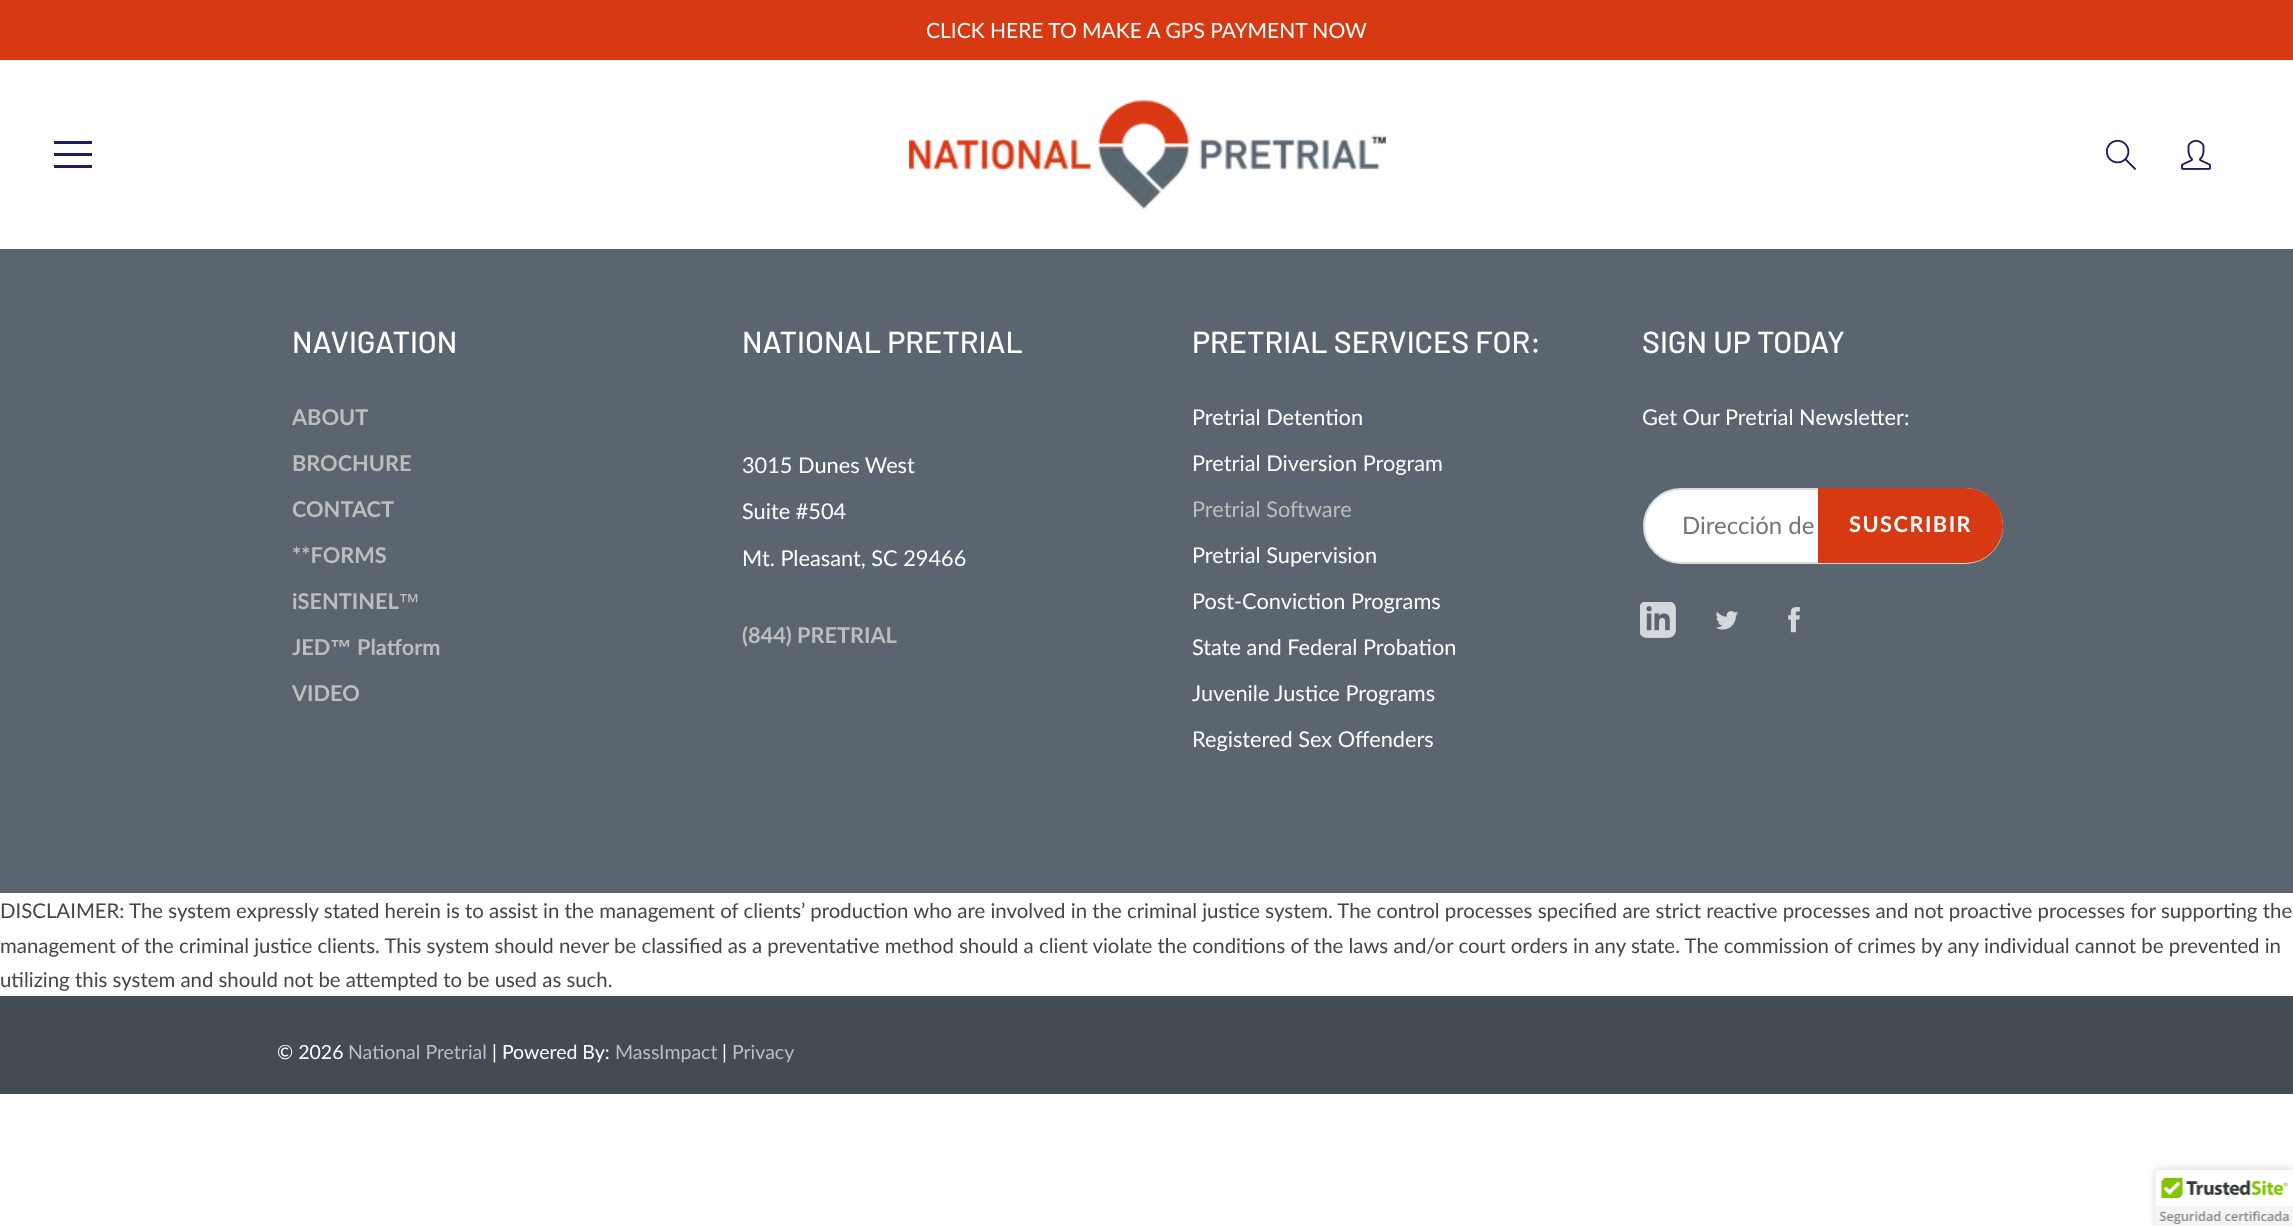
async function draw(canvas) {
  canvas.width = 2293
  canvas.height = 1226
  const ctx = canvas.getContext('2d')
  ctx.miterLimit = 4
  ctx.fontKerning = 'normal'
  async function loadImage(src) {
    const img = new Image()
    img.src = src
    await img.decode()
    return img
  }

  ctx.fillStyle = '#fff'
  ctx.fillRect(0, 0, 2293, 1226)
  ctx.fillStyle = '#d73913'
  ctx.fillRect(0, 0, 2293, 60)
  ctx.font = '21px Lato'
  ctx.fillStyle = '#fff'
  ctx.fillText('CLICK HERE TO MAKE A GPS PAYMENT NOW', 926, 38)
  ctx.drawImage(await loadImage('image0.png'), 909, 100, 477, 109)
  ctx.fillStyle = '#1c1d5f'
  ctx.fillRect(54, 153, 38, 3)
  ctx.fillRect(54, 141, 38, 3)
  ctx.fillRect(54, 165, 38, 3)
  ctx.drawImage(await loadImage('image1.png'), 2105, 139, 31, 31)
  ctx.drawImage(await loadImage('image2.png'), 2181, 139, 30, 31)
  ctx.fillStyle = '#5a656f'
  ctx.fillRect(0, 249, 2293, 644)
  ctx.font = '500 30.5px Barlow'
  ctx.fillStyle = '#fff'
  ctx.fillText('NAVIGATION', 292, 353)
  ctx.font = 'bold 21.75px Lato'
  ctx.fillStyle = '#bdbdbd'
  ctx.fillText('ABOUT', 292, 425)
  ctx.fillText('BROCHURE', 292, 471)
  ctx.fillText('CONTACT', 292, 517)
  ctx.fillText('**FORMS', 292, 563)
  ctx.fillText('iSENTINEL', 292, 609)
  ctx.font = '21.75px Liberation Sans'
  ctx.fillText('™', 398, 609)
  ctx.font = 'bold 21.75px Lato'
  ctx.fillText('JED', 292, 655)
  ctx.font = 'bold 21.75px Liberation Sans'
  ctx.fillText('™', 330, 655)
  ctx.font = 'bold 21.75px Lato'
  ctx.fillText('Platform', 357, 655)
  ctx.fillText('VIDEO', 292, 701)
  ctx.font = '500 30.5px Barlow'
  ctx.fillStyle = '#fff'
  ctx.fillText('NATIONAL PRETRIAL', 742, 353)
  ctx.font = '21.75px Lato'
  ctx.fillText('3015 Dunes West', 742, 473)
  ctx.fillText('Suite #504', 742, 519)
  ctx.fillText('Mt. Pleasant, SC 29466', 742, 566)
  ctx.font = 'bold 21.75px Lato'
  ctx.fillStyle = '#bdbdbd'
  ctx.fillText('(844) PRETRIAL', 742, 643)
  ctx.font = '500 30.5px Barlow'
  ctx.fillStyle = '#fff'
  ctx.fillText('PRETRIAL SERVICES FOR:', 1192, 353)
  ctx.font = '21.75px Lato'
  ctx.fillText('Pretrial Detention', 1192, 425)
  ctx.fillText('Pretrial Diversion Program', 1192, 471)
  ctx.fillStyle = '#bdbdbd'
  ctx.fillText('Pretrial Software', 1192, 517)
  ctx.fillStyle = '#fff'
  ctx.fillText('Pretrial Supervision', 1192, 563)
  ctx.fillText('Post-Conviction Programs', 1192, 609)
  ctx.fillText('State and Federal Probation', 1192, 655)
  ctx.fillText('Juvenile Justice Programs', 1192, 701)
  ctx.fillText('Registered Sex Offenders', 1192, 747)
  ctx.font = '500 30.5px Barlow'
  ctx.fillText('SIGN UP TODAY', 1642, 353)
  ctx.font = '21.75px Lato'
  ctx.fillText('Get Our Pretrial Newsletter:', 1642, 425)
  ctx.beginPath()
  ctx.roundRect(1644, 489, 358, 74, 37)
  ctx.fill()
  ctx.strokeStyle = '#ddd'
  ctx.lineWidth = 2
  ctx.stroke()
  ctx.font = '24px Lato'
  ctx.fillStyle = '#757575'
  ctx.fillText('Dirección de', 1682, 534)
  ctx.fillStyle = '#d73913'
  ctx.beginPath()
  ctx.roundRect(1818, 488, 185, 75, [0, 37.5, 37.5, 0])
  ctx.fill()
  ctx.letterSpacing = '1.5px'
  ctx.font = 'bold 21.75px Lato'
  ctx.fillStyle = '#fff'
  ctx.fillText('SUSCRIBIR', 1849, 532)
  ctx.drawImage(await loadImage('image3.png'), 1640, 602, 36, 36)
  ctx.drawImage(await loadImage('image4.png'), 1715, 611, 23, 19)
  ctx.drawImage(await loadImage('image5.png'), 1788, 607, 12, 26)
  ctx.letterSpacing = '0px'
  ctx.font = '20.4px Lato'
  ctx.fillStyle = '#454545'
  ctx.fillText('DISCLAIMER: The system expressly stated herein is to assist in the management of clients’ production who are involved in the criminal justice system. The control processes specified are strict reactive processes and not proactive processes for supporting the', 0, 918)
  ctx.fillText('management of the criminal justice clients. This system should never be classified as a preventative method should a client violate the conditions of the laws and/or court orders in any state. The commission of crimes by any individual cannot be prevented in', 0, 953)
  ctx.fillText('utilizing this system and should not be attempted to be used as such.', 0, 987)
  ctx.fillStyle = '#434b53'
  ctx.fillRect(0, 996, 2293, 98)
  ctx.font = '19.5px Lato'
  ctx.fillStyle = '#fff'
  ctx.fillText('© 2026', 277, 1059)
  ctx.fillStyle = '#bdbdbd'
  ctx.fillText('National Pretrial', 348, 1059)
  ctx.fillStyle = '#fff'
  ctx.fillText('| Powered By:', 492, 1059)
  ctx.fillStyle = '#bdbdbd'
  ctx.fillText('MassImpact', 615, 1059)
  ctx.fillStyle = '#fff'
  ctx.fillText('|', 722, 1059)
  ctx.fillStyle = '#bdbdbd'
  ctx.fillText('Privacy', 732, 1059)
  ctx.fillStyle = '#00000033'
  ctx.filter = 'blur(4px)'
  ctx.beginPath()
  ctx.roundRect(2156, 1170, 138, 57, 3)
  ctx.fill()
  ctx.filter = 'none'
  ctx.fillStyle = '#fff'
  ctx.beginPath()
  ctx.moveTo(2159, 1170)
  ctx.lineTo(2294, 1170)
  ctx.lineTo(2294, 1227)
  ctx.lineTo(2156, 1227)
  ctx.lineTo(2156, 1173)
  ctx.bezierCurveTo(2156, 1171.5, 2157.5, 1170, 2159, 1170)
  ctx.closePath()
  ctx.fill()
  ctx.drawImage(await loadImage('image6.png'), 2155, 1172, 138, 54)
}

draw(document.querySelector('canvas'))
